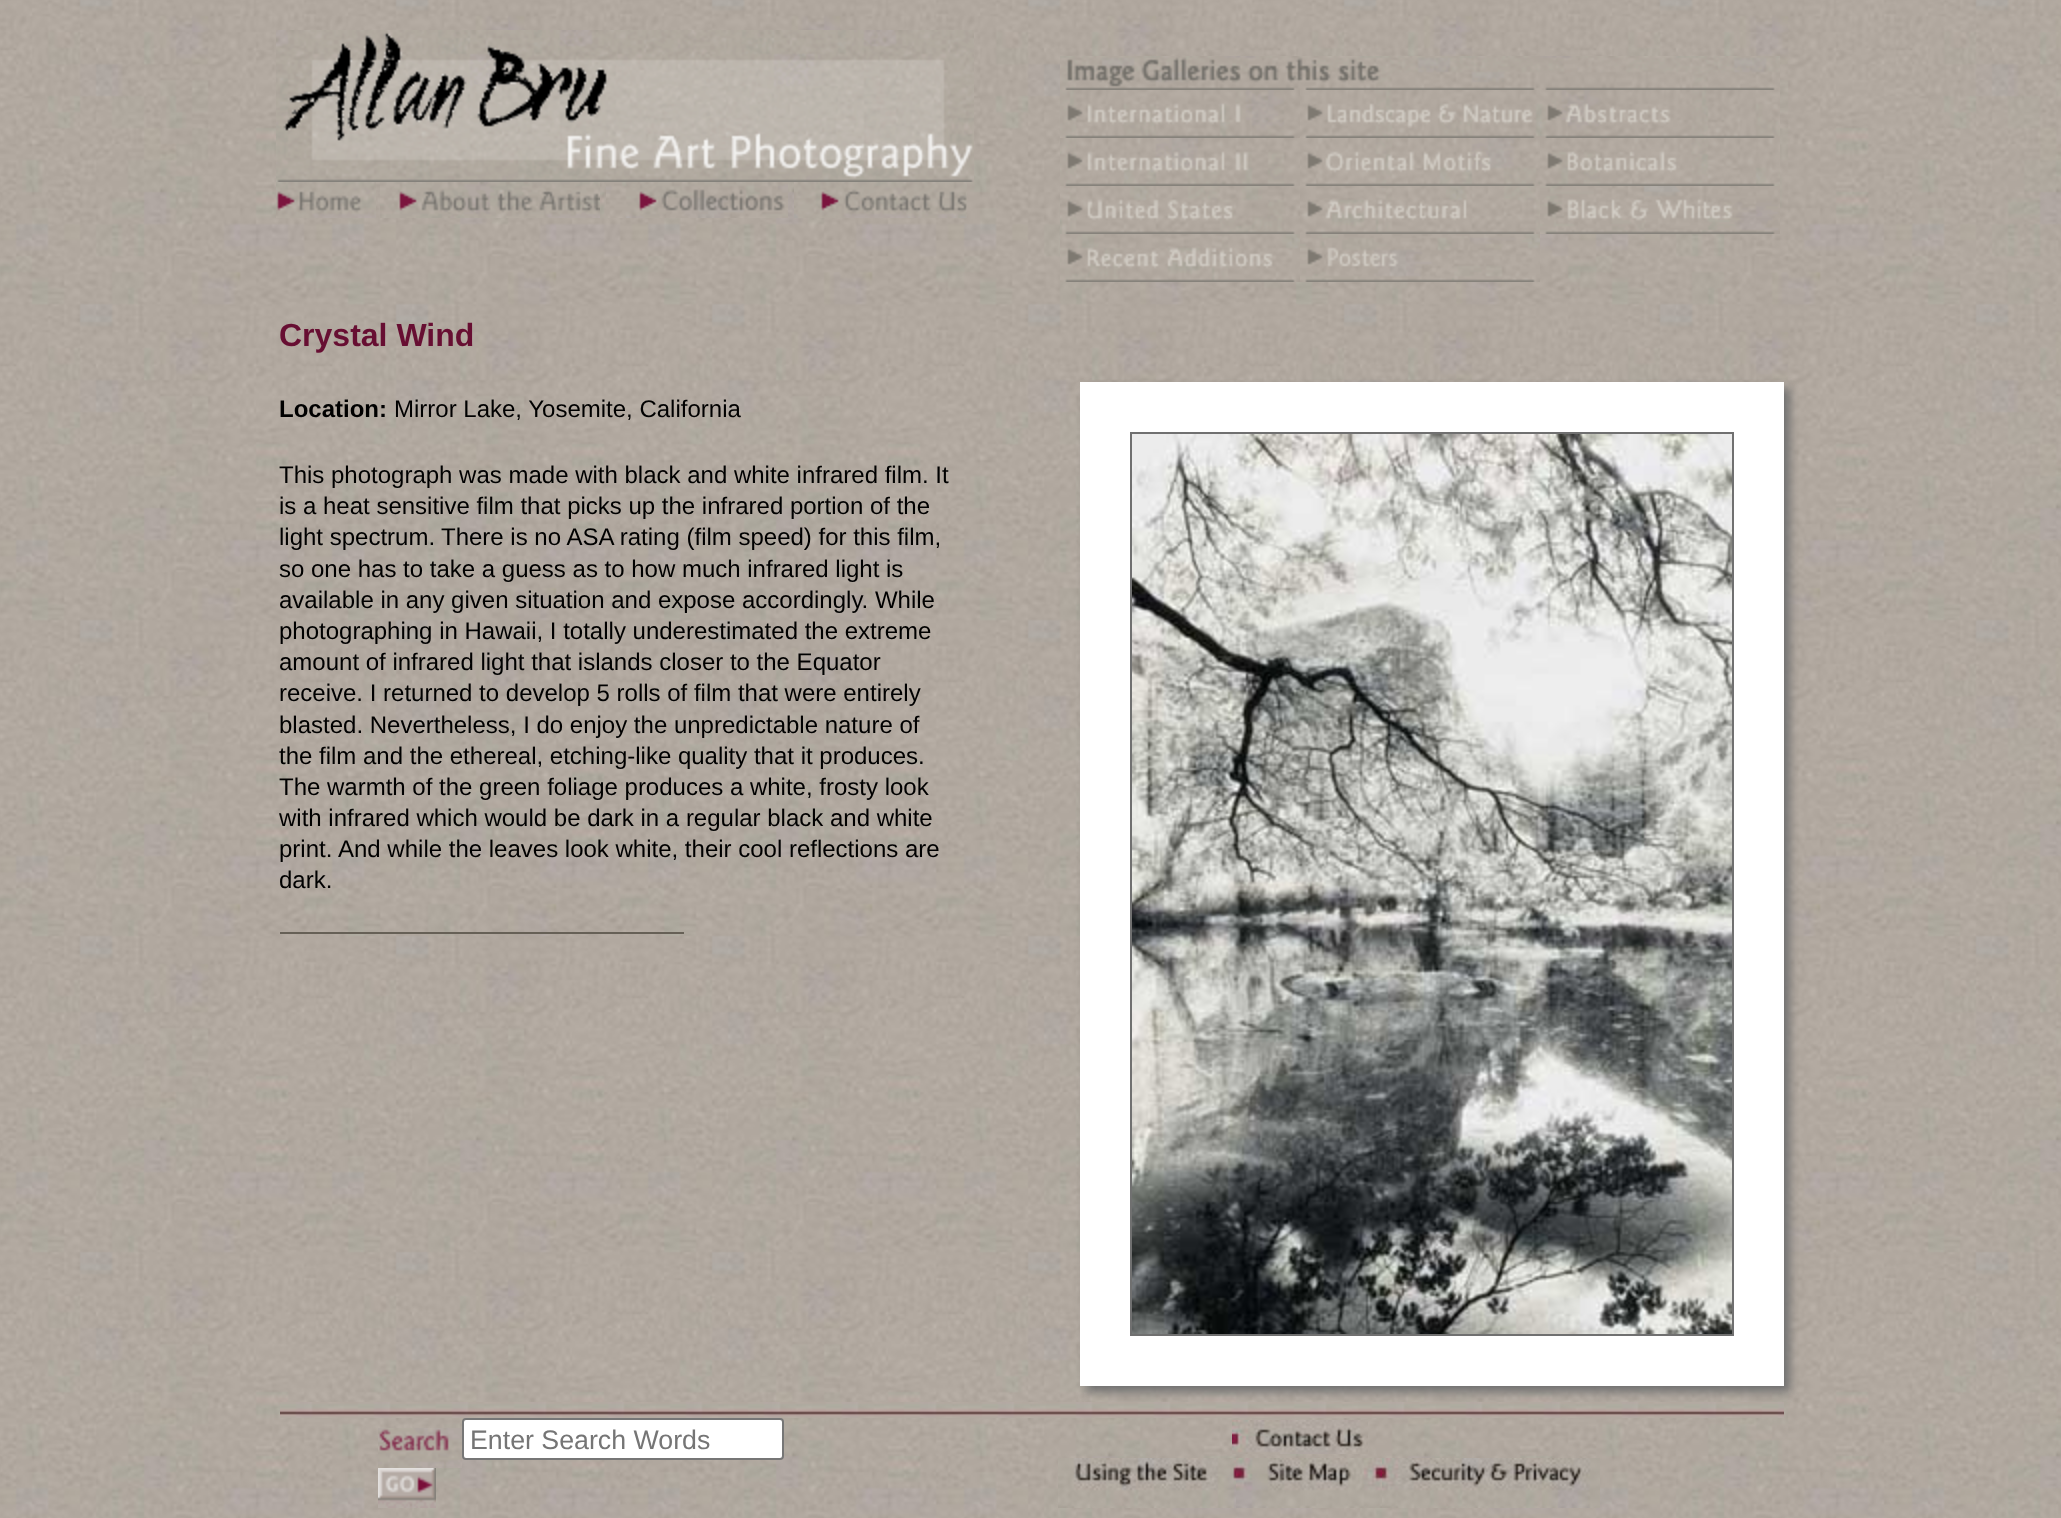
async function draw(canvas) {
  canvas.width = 2061
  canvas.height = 1518
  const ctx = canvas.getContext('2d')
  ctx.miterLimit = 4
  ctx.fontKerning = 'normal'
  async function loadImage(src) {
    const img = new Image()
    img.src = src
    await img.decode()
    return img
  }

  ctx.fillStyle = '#fff'
  ctx.fillRect(0, 0, 2061, 1518)
  ctx.drawImage(await loadImage('image0.png'), 0, 0, 2061, 1518)
  ctx.drawImage(await loadImage('image1.png'), 276, 30, 698, 152)
  ctx.drawImage(await loadImage('image2.png'), 276, 182, 100, 36)
  ctx.drawImage(await loadImage('image3.png'), 380, 182, 220, 36)
  ctx.drawImage(await loadImage('image4.png'), 606, 182, 182, 36)
  ctx.drawImage(await loadImage('image5.png'), 794, 182, 173, 36)
  ctx.drawImage(await loadImage('image6.png'), 1060, 56, 720, 34)
  ctx.drawImage(await loadImage('image7.png'), 1060, 90, 240, 48)
  ctx.drawImage(await loadImage('image8.png'), 1300, 90, 240, 48)
  ctx.drawImage(await loadImage('image9.png'), 1540, 90, 240, 48)
  ctx.drawImage(await loadImage('image10.png'), 1060, 138, 240, 48)
  ctx.drawImage(await loadImage('image11.png'), 1300, 138, 240, 48)
  ctx.drawImage(await loadImage('image12.png'), 1540, 138, 240, 48)
  ctx.drawImage(await loadImage('image13.png'), 1060, 186, 240, 48)
  ctx.drawImage(await loadImage('image14.png'), 1300, 186, 240, 48)
  ctx.drawImage(await loadImage('image15.png'), 1540, 186, 240, 48)
  ctx.drawImage(await loadImage('image16.png'), 1060, 234, 240, 48)
  ctx.drawImage(await loadImage('image17.png'), 1300, 234, 240, 48)
  ctx.font = 'bold 32px Liberation Sans'
  ctx.fillStyle = '#670e32'
  ctx.fillText('Crystal Wind', 279, 346)
  ctx.font = 'bold 24px Liberation Sans'
  ctx.fillStyle = '#000'
  ctx.fillText('Location:', 279, 417)
  ctx.font = '24px Liberation Sans'
  ctx.fillText('Mirror Lake, Yosemite, California', 394, 417)
  ctx.fillText('This photograph was made with black and white infrared film. It', 279, 483)
  ctx.fillText('is a heat sensitive film that picks up the infrared portion of the', 279, 514)
  ctx.fillText('light spectrum.', 279, 545)
  ctx.fillText('There is no ASA rating (film speed) for this film,', 441, 545)
  ctx.fillText('so one has to take a guess as to how much infrared light is', 279, 577)
  ctx.fillText('available in any given situation and expose accordingly. While', 279, 608)
  ctx.fillText('photographing in Hawaii, I totally underestimated the extreme', 279, 639)
  ctx.fillText('amount of infrared light that islands closer to the Equator', 279, 670)
  ctx.fillText('receive. I returned to develop 5 rolls of film that were entirely', 279, 701)
  ctx.fillText('blasted. Nevertheless, I do enjoy the unpredictable nature of', 279, 733)
  ctx.fillText('the film and the ethereal, etching-like quality that it produces.', 279, 764)
  ctx.fillText('The warmth of the green foliage produces a white, frosty look', 279, 795)
  ctx.fillText('with infrared which would be dark in a regular black and white', 279, 826)
  ctx.fillText('print.', 279, 857)
  ctx.fillText('And while the leaves look white, their cool reflections are', 338, 857)
  ctx.fillText('dark.', 279, 888)
  ctx.fillStyle = '#666056'
  ctx.fillRect(280, 932, 404, 2)
  ctx.fillStyle = '#707070'
  ctx.filter = 'blur(5px)'
  ctx.beginPath()
  ctx.rect(1086, 388, 704, 1004)
  ctx.fill()
  ctx.filter = 'none'
  ctx.strokeStyle = '#fff'
  ctx.lineWidth = 50
  ctx.strokeRect(1105, 407, 654, 954)
  ctx.drawImage(await loadImage('image18.png'), 1132, 434, 600, 900)
  ctx.drawImage(await loadImage('image19.png'), 280, 1402, 1504, 16)
  ctx.drawImage(await loadImage('image20.png'), 378, 1428, 84, 40)
  ctx.fillStyle = '#fff'
  ctx.beginPath()
  ctx.roundRect(463, 1419, 320, 40, 3)
  ctx.fill()
  ctx.strokeStyle = '#767676'
  ctx.lineWidth = 2
  ctx.stroke()
  ctx.font = '26.75px Liberation Sans'
  ctx.fillStyle = '#757575'
  ctx.fillText('Enter Search Words', 470, 1449)
  ctx.drawImage(await loadImage('image21.png'), 378, 1468, 58, 40)
  ctx.drawImage(await loadImage('image22.png'), 1232, 1420, 136, 34)
  ctx.drawImage(await loadImage('image23.png'), 1058, 1458, 178, 50)
  ctx.drawImage(await loadImage('image24.png'), 1236, 1458, 146, 50)
  ctx.drawImage(await loadImage('image25.png'), 1382, 1458, 218, 50)
}

draw(document.querySelector('canvas'))
